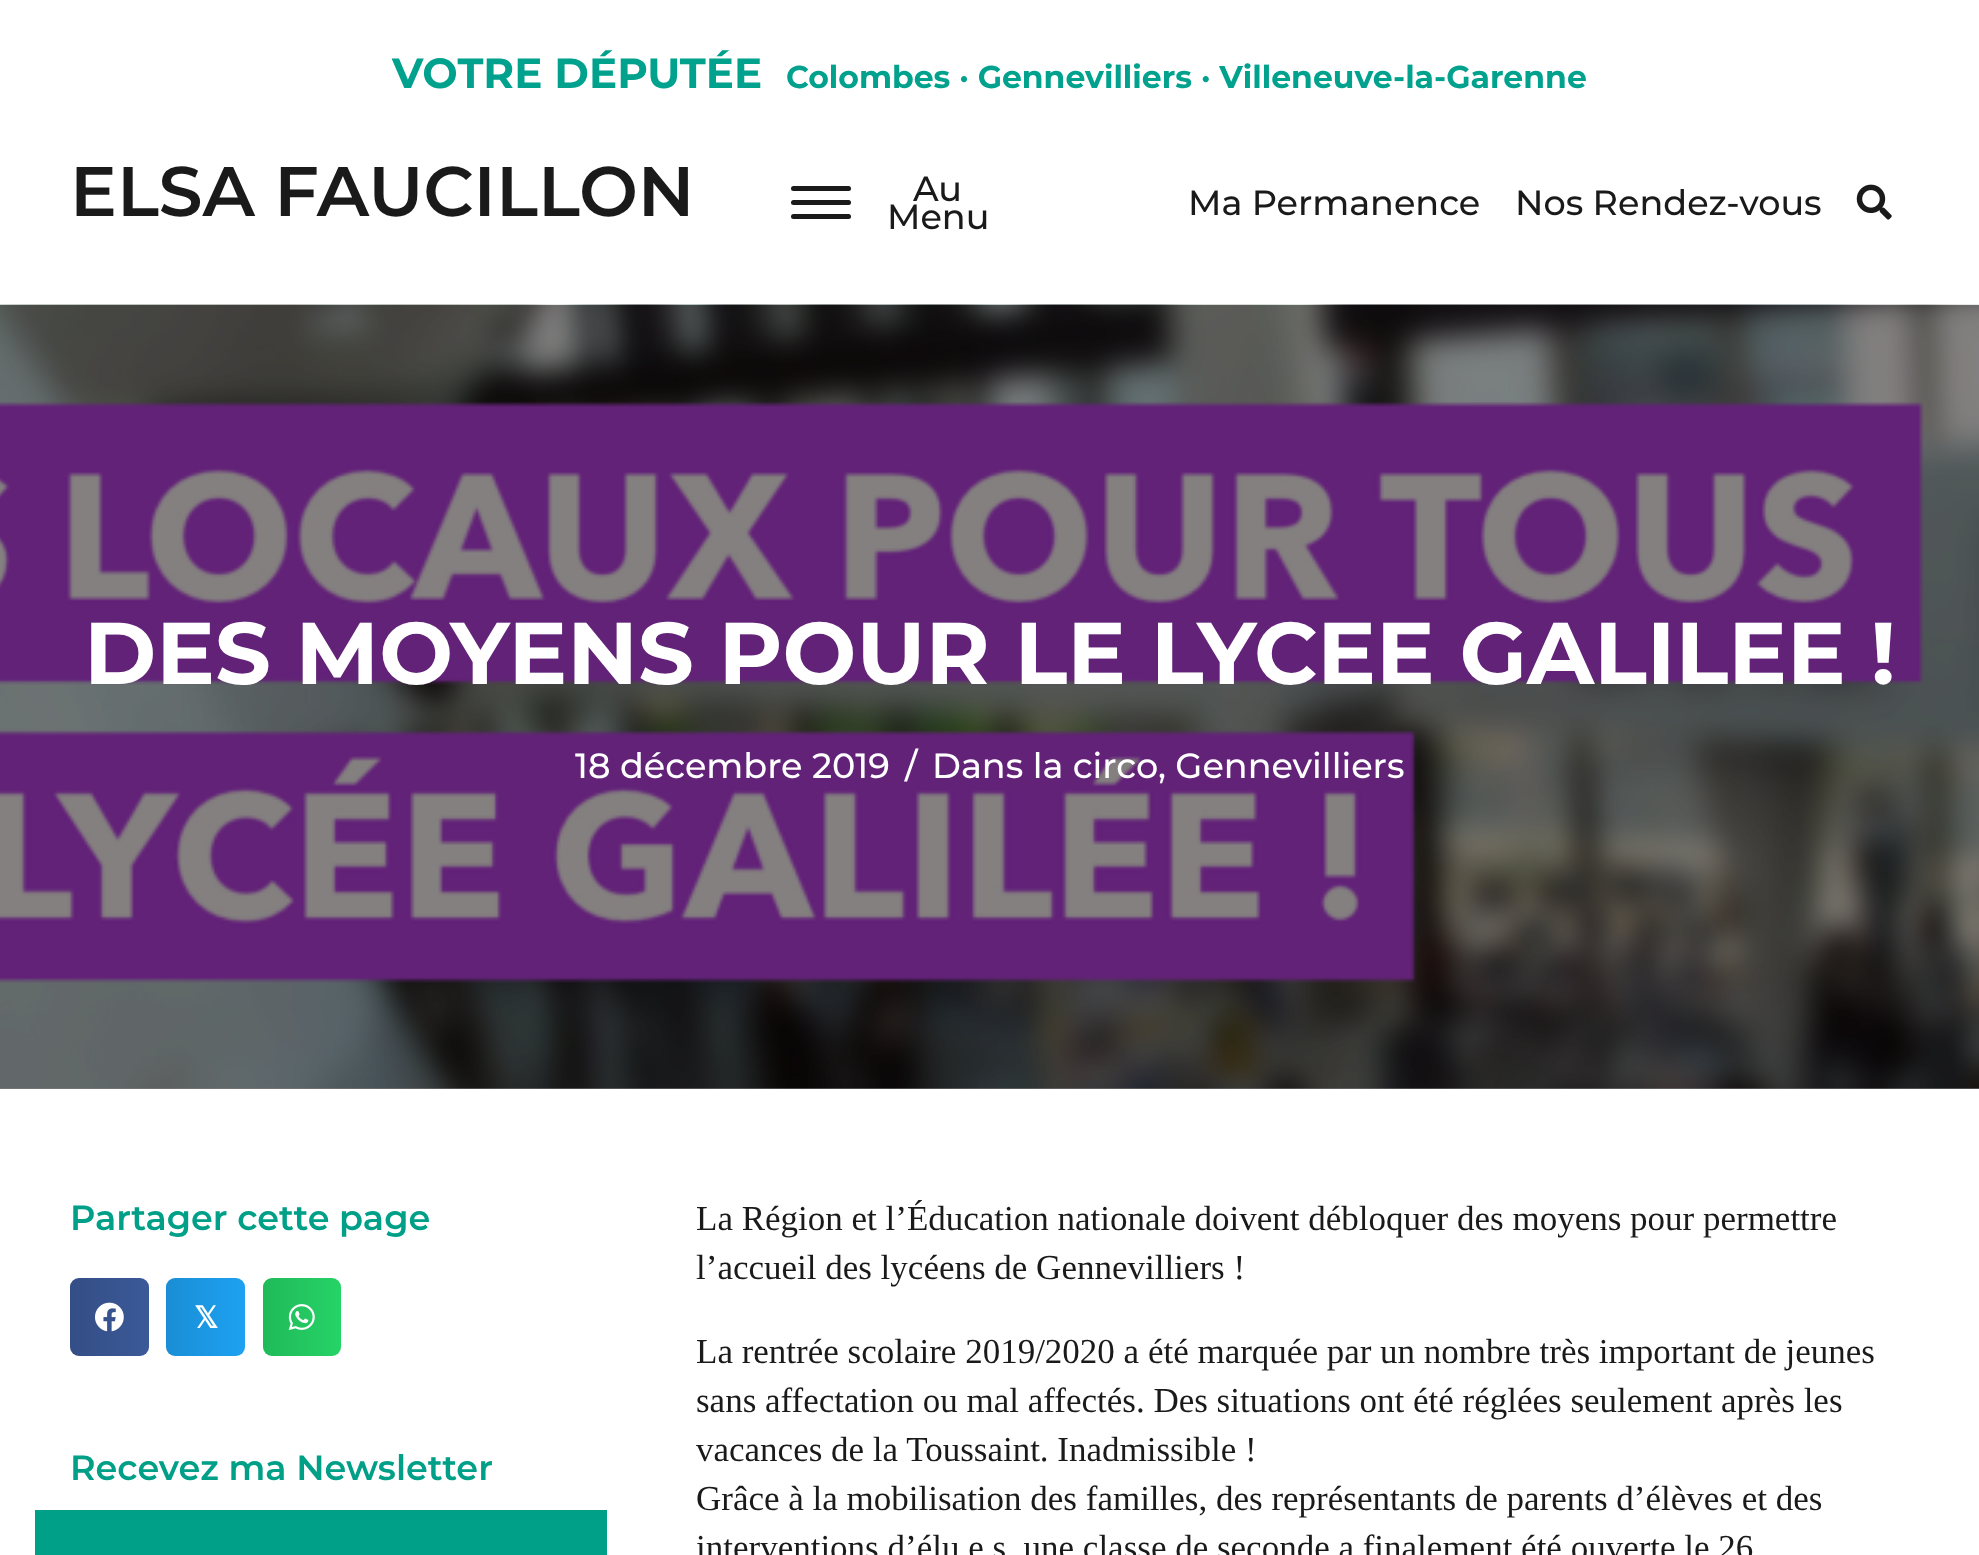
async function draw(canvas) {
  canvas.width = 1979
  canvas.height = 1555
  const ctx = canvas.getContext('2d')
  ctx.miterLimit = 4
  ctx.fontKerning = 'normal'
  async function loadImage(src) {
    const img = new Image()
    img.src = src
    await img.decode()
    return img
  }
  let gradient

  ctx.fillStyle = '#fff'
  ctx.fillRect(0, 0, 1979, 1555)
  ctx.fillStyle = '#858080'
  ctx.fillRect(0, 1088, 1979, 1)
  ctx.font = 'bold 42px Montserrat'
  ctx.fillStyle = '#00a18d'
  ctx.fillText('VOTRE DÉPUTÉE', 392, 88)
  ctx.font = 'bold 31.5px Montserrat'
  ctx.fillText('Colombes · Gennevilliers · Villeneuve-la-Garenne', 786, 88)
  ctx.font = '600 70px Montserrat'
  ctx.fillStyle = '#1a1a1a'
  ctx.fillText('ELSA FAUCILLON', 70, 216)
  ctx.beginPath()
  ctx.roundRect(791, 200, 60, 5, 2.5)
  ctx.fill()
  ctx.beginPath()
  ctx.roundRect(791, 186, 60, 5, 2.5)
  ctx.fill()
  ctx.beginPath()
  ctx.roundRect(791, 214, 60, 5, 2.5)
  ctx.fill()
  ctx.font = '500 35px Montserrat'
  ctx.fillText('Au', 913, 201)
  ctx.fillText('Menu', 887, 229)
  ctx.fillText('Ma Permanence', 1188, 215)
  ctx.fillText('Nos Rendez-vous', 1515, 215)
  ctx.drawImage(await loadImage('image0.png'), 1856, 184, 36, 36)
  ctx.drawImage(await loadImage('image1.png'), 0, 304, 1979, 785)
  ctx.font = 'bold 87.5px Montserrat'
  ctx.fillStyle = '#fff'
  ctx.fillText('DES MOYENS POUR LE LYCEE GALILEE !', 84, 684)
  ctx.font = '500 35px Montserrat'
  ctx.fillText('18 décembre 2019', 575, 778)
  ctx.fillText('/', 905, 778)
  ctx.fillText('Dans la circo', 932, 778)
  ctx.fillText(', Gennevilliers', 1158, 778)
  ctx.font = '600 35px Montserrat'
  ctx.fillStyle = '#009f87'
  ctx.fillText('Partager cette page', 70, 1230)
  ctx.fillStyle = '#3b5998'
  ctx.beginPath()
  ctx.roundRect(70, 1278, 79, 78, 9)
  ctx.fill()
  gradient = ctx.createLinearGradient(70, 1317, 149, 1317)
  gradient.addColorStop(0, '#0000001f')
  gradient.addColorStop(1, '#00000000')
  ctx.fillStyle = gradient
  ctx.beginPath()
  ctx.roundRect(70, 1278, 79, 78, 9)
  ctx.fill()
  ctx.drawImage(await loadImage('image2.png'), 95, 1302, 29, 30)
  ctx.fillStyle = '#1da1f2'
  ctx.beginPath()
  ctx.roundRect(166, 1278, 79, 78, 9)
  ctx.fill()
  gradient = ctx.createLinearGradient(166, 1317, 245, 1317)
  gradient.addColorStop(0, '#0000001f')
  gradient.addColorStop(1, '#00000000')
  ctx.fillStyle = gradient
  ctx.beginPath()
  ctx.roundRect(166, 1278, 79, 78, 9)
  ctx.fill()
  ctx.font = 'bold 30px DejaVu Sans'
  ctx.fillStyle = '#fff'
  ctx.fillText('𝕏', 194, 1328)
  ctx.fillStyle = '#25d366'
  ctx.beginPath()
  ctx.roundRect(263, 1278, 78, 78, 9)
  ctx.fill()
  gradient = ctx.createLinearGradient(263, 1317, 341, 1317)
  gradient.addColorStop(0, '#0000001f')
  gradient.addColorStop(1, '#00000000')
  ctx.fillStyle = gradient
  ctx.beginPath()
  ctx.roundRect(263, 1278, 78, 78, 9)
  ctx.fill()
  ctx.drawImage(await loadImage('image3.png'), 288, 1304, 27, 26)
  ctx.font = '600 35px Montserrat'
  ctx.fillStyle = '#009f87'
  ctx.fillText('Recevez ma Newsletter', 70, 1480)
  ctx.fillRect(35, 1510, 572, 45)
  ctx.font = '35px Liberation Serif'
  ctx.fillStyle = '#1a1a1a'
  ctx.fillText('La Région et l’Éducation nationale doivent débloquer des moyens pour permettre', 696, 1230)
  ctx.fillText('l’accueil des lycéens de Gennevilliers !', 696, 1279)
  ctx.fillText('La rentrée scolaire 2019/2020 a été marquée par un nombre très important de jeunes', 696, 1363)
  ctx.fillText('sans affectation ou mal affectés. Des situations ont été réglées seulement après les', 696, 1412)
  ctx.fillText('vacances de la Toussaint. Inadmissible !', 696, 1461)
  ctx.fillText('Grâce à la mobilisation des familles, des représentants de parents d’élèves et des', 696, 1510)
  ctx.fillText('interventions d’élu.e.s, une classe de seconde a finalement été ouverte le 26', 696, 1559)
}

draw(document.querySelector('canvas'))
